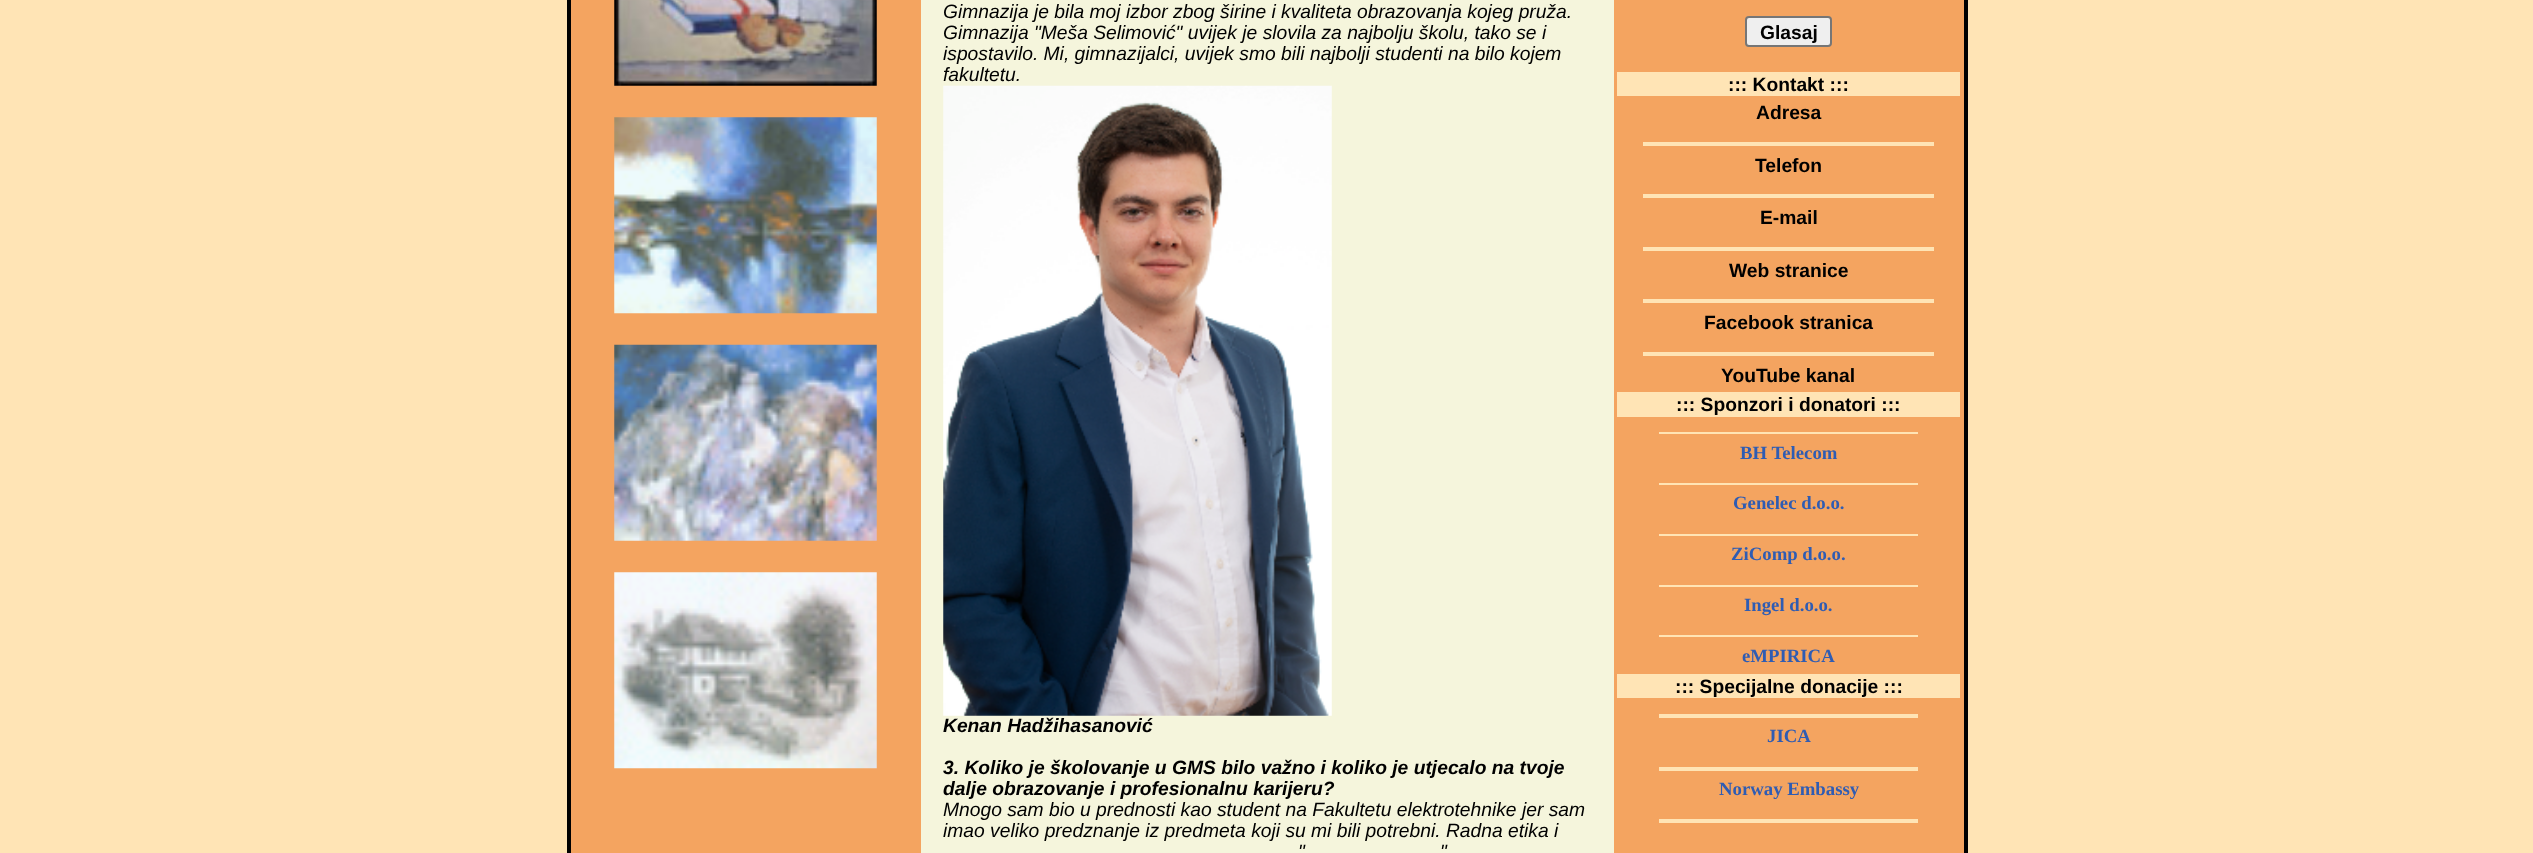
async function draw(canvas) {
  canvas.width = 2533
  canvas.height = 853
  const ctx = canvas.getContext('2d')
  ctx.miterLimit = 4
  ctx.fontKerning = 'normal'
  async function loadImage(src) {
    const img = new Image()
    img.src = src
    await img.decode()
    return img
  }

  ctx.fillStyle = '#ffe4b5'
  ctx.fillRect(0, 0, 2533, 853)
  ctx.fillStyle = '#000'
  ctx.fillRect(1964, 0, 4, 853)
  ctx.fillRect(567, 0, 4, 853)
  ctx.fillStyle = '#f4a460'
  ctx.fillRect(571, 0, 350, 853)
  ctx.drawImage(await loadImage('image0.png'), 614, 0, 263, 86)
  ctx.drawImage(await loadImage('image1.png'), 614, 117, 263, 197)
  ctx.drawImage(await loadImage('image2.png'), 614, 344, 263, 197)
  ctx.drawImage(await loadImage('image3.png'), 614, 572, 263, 197)
  ctx.fillStyle = '#f5f5dc'
  ctx.fillRect(921, 0, 693, 853)
  ctx.font = 'italic 19.25px Liberation Sans'
  ctx.fillStyle = '#000'
  ctx.fillText('Gimnazija je bila moj izbor zbog širine i kvaliteta obrazovanja kojeg pruža.', 943, 18)
  ctx.fillText('Gimnazija "Meša Selimović" uvijek je slovila za najbolju školu, tako se i', 943, 39)
  ctx.fillText('ispostavilo. Mi, gimnazijalci, uvijek smo bili najbolji studenti na bilo kojem', 943, 60)
  ctx.fillText('fakultetu.', 943, 81)
  ctx.drawImage(await loadImage('image4.png'), 943, 85, 389, 631)
  ctx.font = 'italic bold 19.25px Liberation Sans'
  ctx.fillText('Kenan Hadžihasanović', 943, 732)
  ctx.fillText('3. Koliko je školovanje u GMS bilo važno i koliko je utjecalo na tvoje', 943, 774)
  ctx.fillText('dalje obrazovanje i profesionalnu karijeru?', 943, 795)
  ctx.font = 'italic 19.25px Liberation Sans'
  ctx.fillText('Mnogo sam bio u prednosti kao student na Fakultetu elektrotehnike jer sam', 943, 816)
  ctx.fillText('imao veliko predznanje iz predmeta koji su mi bili potrebni. Radna etika i', 943, 837)
  ctx.fillText('"', 1298, 858)
  ctx.fillText('"', 1440, 858)
  ctx.fillStyle = '#f4a460'
  ctx.fillRect(1614, 0, 350, 853)
  ctx.fillStyle = '#efefef'
  ctx.beginPath()
  ctx.roundRect(1746, 17, 85, 29, 3)
  ctx.fill()
  ctx.strokeStyle = '#767676'
  ctx.lineWidth = 2
  ctx.stroke()
  ctx.font = 'bold 19.25px Liberation Sans'
  ctx.fillStyle = '#000'
  ctx.fillText('Glasaj', 1760, 39)
  ctx.fillStyle = '#ffe4b5'
  ctx.fillRect(1617, 72, 343, 24)
  ctx.fillStyle = '#000'
  ctx.fillText('::: Kontakt :::', 1728, 91)
  ctx.fillText('Adresa', 1756, 119)
  ctx.fillStyle = '#ffe4b5'
  ctx.fillRect(1643, 142, 291, 4)
  ctx.fillStyle = '#000'
  ctx.fillText('Telefon', 1755, 172)
  ctx.fillStyle = '#ffe4b5'
  ctx.fillRect(1643, 194, 291, 4)
  ctx.fillStyle = '#000'
  ctx.fillText('E-mail', 1760, 224)
  ctx.fillStyle = '#ffe4b5'
  ctx.fillRect(1643, 247, 291, 4)
  ctx.fillStyle = '#000'
  ctx.fillText('Web stranice', 1729, 277)
  ctx.fillStyle = '#ffe4b5'
  ctx.fillRect(1643, 299, 291, 4)
  ctx.fillStyle = '#000'
  ctx.fillText('Facebook stranica', 1704, 329)
  ctx.fillStyle = '#ffe4b5'
  ctx.fillRect(1643, 352, 291, 4)
  ctx.fillStyle = '#000'
  ctx.fillText('YouTube kanal', 1721, 382)
  ctx.fillStyle = '#ffe4b5'
  ctx.fillRect(1617, 392, 343, 25)
  ctx.fillStyle = '#000'
  ctx.fillText('::: Sponzori i donatori :::', 1676, 411)
  ctx.fillStyle = '#ffe4b5'
  ctx.fillRect(1659, 432, 259, 2)
  ctx.font = 'bold 18.75px Liberation Serif'
  ctx.fillStyle = '#2f5cb3'
  ctx.fillText('BH Telecom', 1740, 459)
  ctx.fillStyle = '#ffe4b5'
  ctx.fillRect(1659, 483, 259, 2)
  ctx.fillStyle = '#2f5cb3'
  ctx.fillText('Genelec d.o.o.', 1733, 509)
  ctx.fillStyle = '#ffe4b5'
  ctx.fillRect(1659, 534, 259, 2)
  ctx.fillStyle = '#2f5cb3'
  ctx.fillText('ZiComp d.o.o.', 1731, 560)
  ctx.fillStyle = '#ffe4b5'
  ctx.fillRect(1659, 585, 259, 2)
  ctx.fillStyle = '#2f5cb3'
  ctx.fillText('Ingel d.o.o.', 1744, 611)
  ctx.fillStyle = '#ffe4b5'
  ctx.fillRect(1659, 635, 259, 2)
  ctx.fillStyle = '#2f5cb3'
  ctx.fillText('eMPIRICA', 1742, 662)
  ctx.fillStyle = '#ffe4b5'
  ctx.fillRect(1617, 674, 343, 24)
  ctx.font = 'bold 19.25px Liberation Sans'
  ctx.fillStyle = '#000'
  ctx.fillText('::: Specijalne donacije :::', 1675, 693)
  ctx.fillStyle = '#ffe4b5'
  ctx.fillRect(1659, 714, 259, 4)
  ctx.font = 'bold 18.75px Liberation Serif'
  ctx.fillStyle = '#2f5cb3'
  ctx.fillText('JICA', 1767, 742)
  ctx.fillStyle = '#ffe4b5'
  ctx.fillRect(1659, 767, 259, 4)
  ctx.fillStyle = '#2f5cb3'
  ctx.fillText('Norway Embassy', 1719, 795)
  ctx.fillStyle = '#ffe4b5'
  ctx.fillRect(1659, 819, 259, 4)
}

draw(document.querySelector('canvas'))
